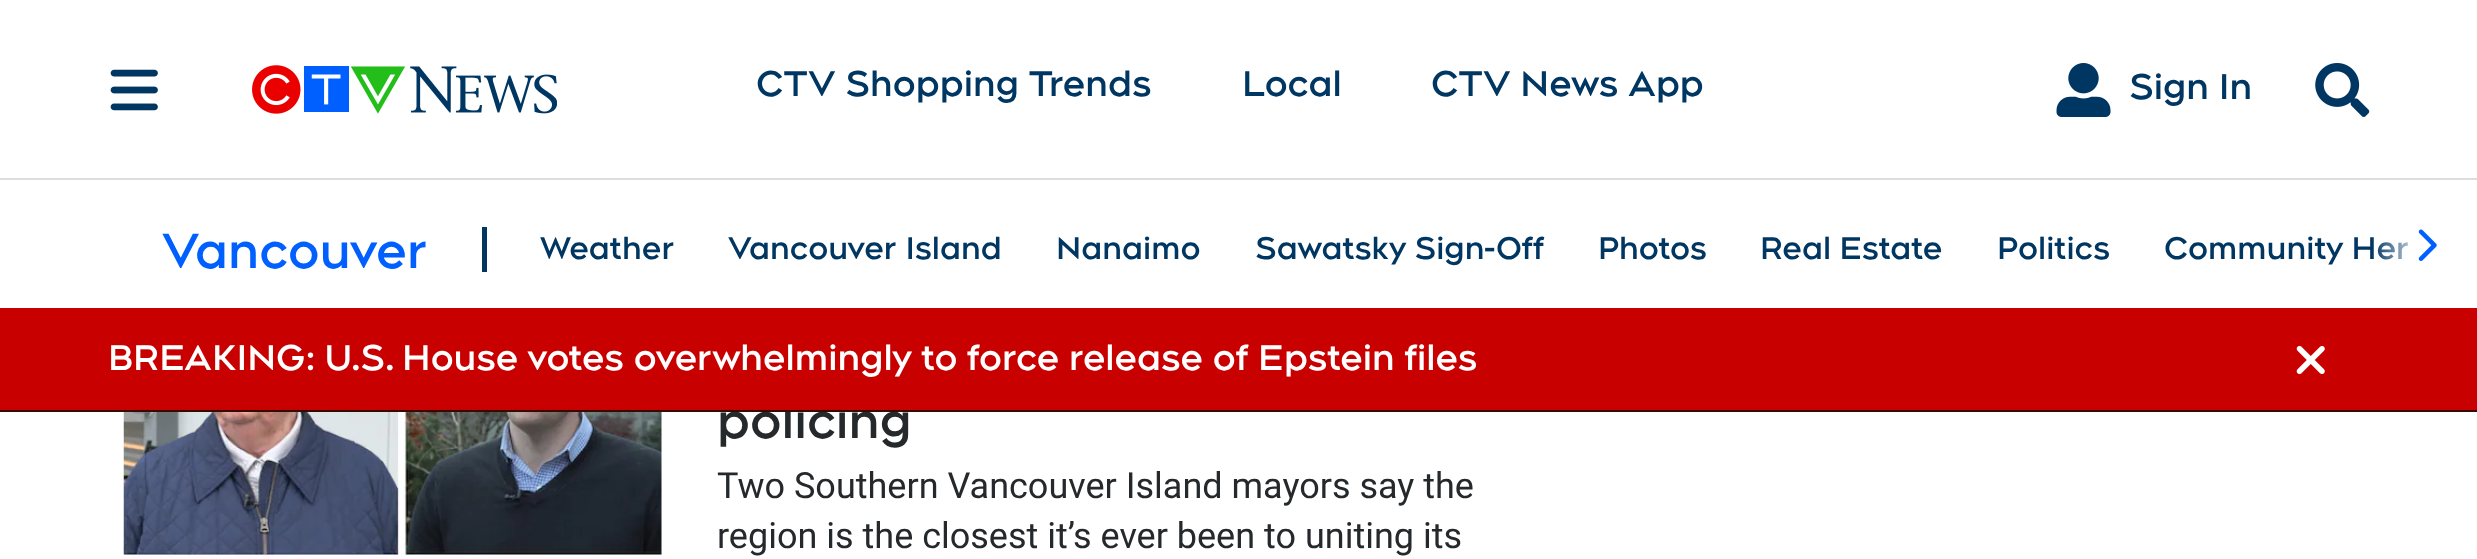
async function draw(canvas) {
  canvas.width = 2477
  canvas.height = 559
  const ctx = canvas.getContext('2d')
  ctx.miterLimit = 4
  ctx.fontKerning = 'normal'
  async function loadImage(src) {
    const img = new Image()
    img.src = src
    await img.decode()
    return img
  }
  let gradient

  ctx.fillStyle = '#fff'
  ctx.fillRect(0, 0, 2477, 559)
  ctx.fillStyle = '#ddd'
  ctx.fillRect(0, 178, 2477, 2)
  ctx.drawImage(await loadImage('image0.png'), 110, 69, 48, 42)
  ctx.drawImage(await loadImage('image1.png'), 252, 65, 305, 49)
  ctx.font = 'bold 36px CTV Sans'
  ctx.fillStyle = '#003662'
  ctx.fillText('CTV Shopping Trends', 756, 96)
  ctx.fillText('Local', 1242, 96)
  ctx.fillText('CTV News App', 1431, 96)
  ctx.drawImage(await loadImage('image2.png'), 2056, 63, 55, 54)
  ctx.fillText('Sign In', 2129, 99)
  ctx.drawImage(await loadImage('image3.png'), 2315, 63, 55, 54)
  ctx.font = 'bold 49.5px CTV Sans'
  ctx.fillStyle = '#005fff'
  ctx.fillText('Vancouver', 162, 268)
  ctx.fillStyle = '#003662'
  ctx.fillRect(482, 227, 5, 45)
  ctx.font = 'bold 31.5px CTV Sans'
  ctx.fillText('Weather', 540, 259)
  ctx.fillText('Vancouver Island', 728, 259)
  ctx.fillText('Nanaimo', 1056, 259)
  ctx.fillText('Sawatsky Sign-Off', 1255, 259)
  ctx.fillText('Photos', 1598, 259)
  ctx.fillText('Real Estate', 1760, 259)
  ctx.fillText('Politics', 1997, 259)
  ctx.fillText('Community Her', 2164, 259)
  gradient = ctx.createLinearGradient(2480, 244, 2372, 244)
  gradient.addColorStop(0.5, '#fff')
  gradient.addColorStop(1, '#ffffff00')
  ctx.fillStyle = gradient
  ctx.beginPath()
  ctx.roundRect(2372, 216, 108, 56, 9)
  ctx.fill()
  ctx.drawImage(await loadImage('image4.png'), 2418, 229, 19, 32)
  ctx.font = 'bold 49.5px CTV Sans'
  ctx.fillStyle = '#26292b'
  ctx.fillText('policing', 717, 438)
  ctx.fillStyle = '#c80000'
  ctx.fillRect(0, 308, 2477, 102)
  ctx.fillStyle = '#370a00'
  ctx.fillRect(0, 410, 2477, 2)
  ctx.font = 'bold 36px CTV Sans'
  ctx.fillStyle = '#fff'
  ctx.fillText('BREAKING: U.S. House votes overwhelmingly to force release of Epstein files', 108, 370)
  ctx.drawImage(await loadImage('image5.png'), 2296, 345, 29, 29)
  ctx.drawImage(await loadImage('image6.png'), 123, 412, 539, 146)
  ctx.font = '36px Roboto'
  ctx.fillStyle = '#26292b'
  ctx.fillText('Two Southern Vancouver Island mayors say the', 717, 498)
  ctx.fillText('region is the closest it’s ever been to uniting its', 717, 548)
}

draw(document.querySelector('canvas'))
